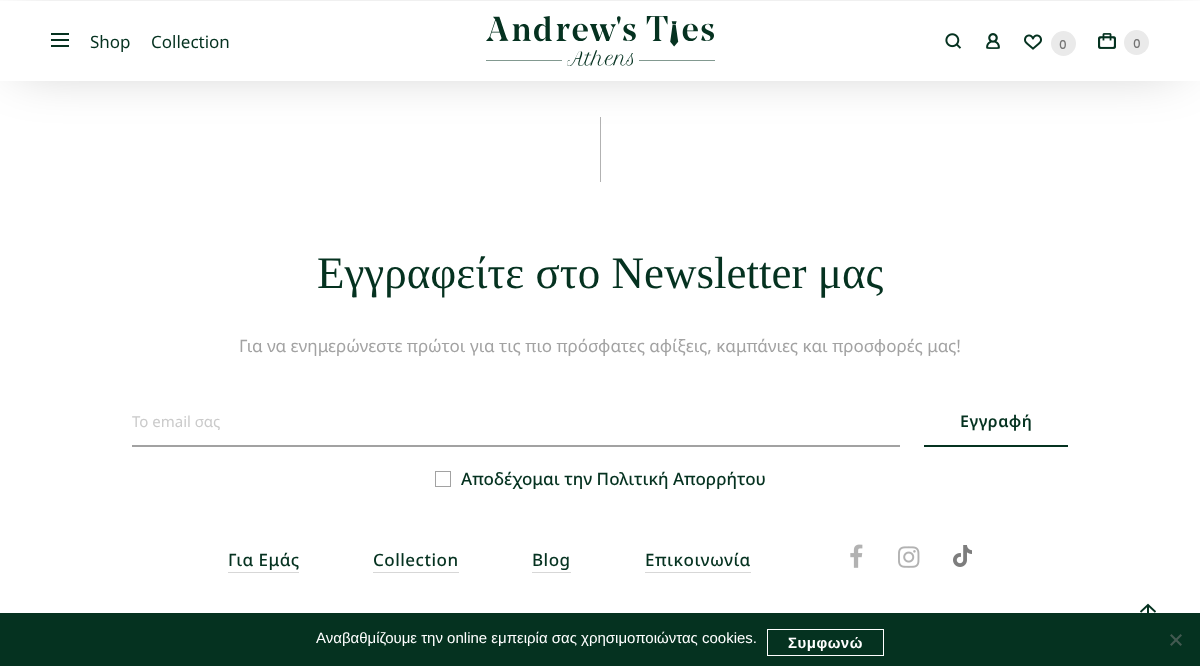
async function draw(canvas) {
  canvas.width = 1200
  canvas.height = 666
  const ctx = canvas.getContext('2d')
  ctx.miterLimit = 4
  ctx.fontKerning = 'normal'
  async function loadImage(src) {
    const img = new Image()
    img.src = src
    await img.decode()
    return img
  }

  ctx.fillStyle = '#fff'
  ctx.fillRect(0, 0, 1200, 666)
  ctx.fillStyle = '#b2b2b2'
  ctx.fillRect(600, 117, 1, 65)
  ctx.save()
  ctx.beginPath()
  ctx.moveTo(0, 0)
  ctx.lineTo(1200, 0)
  ctx.lineTo(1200, 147)
  ctx.lineTo(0, 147)
  ctx.closePath()
  ctx.moveTo(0, 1)
  ctx.lineTo(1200, 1)
  ctx.lineTo(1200, 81)
  ctx.lineTo(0, 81)
  ctx.closePath()
  ctx.clip('evenodd')
  ctx.fillStyle = '#0000004d'
  ctx.filter = 'blur(27.5px)'
  ctx.beginPath()
  ctx.rect(18, 23, 1160, 40)
  ctx.fill()
  ctx.filter = 'none'
  ctx.restore()
  ctx.fillStyle = '#053220'
  ctx.fillRect(51, 33, 18, 2)
  ctx.fillRect(51, 39, 18, 2)
  ctx.fillRect(51, 45, 18, 2)
  ctx.font = '17px Noto Sans'
  ctx.fillText('Shop', 90, 48)
  ctx.fillText('Collection', 151, 48)
  ctx.drawImage(await loadImage('image0.png'), 486, 16, 229, 50)
  ctx.drawImage(await loadImage('image1.png'), 945, 33, 17, 16)
  ctx.drawImage(await loadImage('image2.png'), 986, 33, 14, 16)
  ctx.drawImage(await loadImage('image3.png'), 1024, 34, 18, 16)
  ctx.fillStyle = '#eaeaea'
  ctx.beginPath()
  ctx.arc(1063.5, 43.5, 12.5, 0, 2 * Math.PI)
  ctx.fill()
  ctx.font = '500 12px Poppins'
  ctx.fillStyle = '#737373'
  ctx.fillText('0', 1059, 49)
  ctx.drawImage(await loadImage('image4.png'), 1098, 33, 18, 16)
  ctx.fillStyle = '#eaeaea'
  ctx.beginPath()
  ctx.arc(1136.5, 42.5, 12.5, 0, 2 * Math.PI)
  ctx.fill()
  ctx.fillStyle = '#737373'
  ctx.fillText('0', 1133, 48)
  ctx.font = '45px Tinos'
  ctx.fillStyle = '#053220'
  ctx.fillText('Εγγραφείτε στο Newsletter μας', 317, 288)
  ctx.font = '17px Noto Sans'
  ctx.fillStyle = '#a2a2a2'
  ctx.fillText('Για να ενημερώνεστε πρώτοι για τις πιο πρόσφατες αφίξεις, καμπάνιες και προσφορές μας!', 239, 352)
  ctx.fillRect(132, 445, 768, 2)
  ctx.font = '15px Noto Sans'
  ctx.fillStyle = '#cacaca'
  ctx.fillText('Το email σας', 132, 427)
  ctx.fillStyle = '#053220'
  ctx.fillRect(924, 445, 144, 2)
  ctx.letterSpacing = '0.5px'
  ctx.font = '600 16px Noto Sans'
  ctx.fillText('Εγγραφή', 960, 427)
  ctx.strokeStyle = '#a2a2a2'
  ctx.strokeRect(435.5, 471.5, 15, 15)
  ctx.letterSpacing = '0px'
  ctx.font = '500 17px Noto Sans'
  ctx.fillText('Αποδέχομαι την Πολιτική Απορρήτου', 461, 485)
  ctx.letterSpacing = '0.5px'
  ctx.fillText('Για Εμάς', 228, 566)
  ctx.fillStyle = '#d7d7d7'
  ctx.fillRect(228, 572, 71, 1)
  ctx.fillStyle = '#053220'
  ctx.fillText('Collection', 373, 566)
  ctx.fillStyle = '#d7d7d7'
  ctx.fillRect(373, 572, 86, 1)
  ctx.fillStyle = '#053220'
  ctx.fillText('Blog', 532, 566)
  ctx.fillStyle = '#d7d7d7'
  ctx.fillRect(532, 572, 39, 1)
  ctx.fillStyle = '#053220'
  ctx.fillText('Επικοινωνία', 645, 566)
  ctx.fillStyle = '#d7d7d7'
  ctx.fillRect(645, 572, 106, 1)
  ctx.drawImage(await loadImage('image5.png'), 850, 544, 13, 24)
  ctx.drawImage(await loadImage('image6.png'), 898, 546, 22, 22)
  ctx.drawImage(await loadImage('image7.png'), 953, 545, 19, 22)
  ctx.beginPath()
  ctx.moveTo(1140.5, 612)
  ctx.lineTo(1148.5, 604.5)
  ctx.moveTo(1155.5, 612)
  ctx.lineTo(1147.5, 604.5)
  ctx.strokeStyle = '#053220'
  ctx.lineWidth = 1.8
  ctx.stroke()
  ctx.fillStyle = '#053220'
  ctx.fillRect(1147, 606, 2, 7)
  ctx.fillRect(0, 613, 1200, 53)
  ctx.letterSpacing = '0px'
  ctx.font = '15px Liberation Sans'
  ctx.fillStyle = '#fff'
  ctx.fillText('Αναβαθμίζουμε την online εμπειρία σας χρησιμοποιώντας cookies.', 316, 643)
  ctx.strokeStyle = '#fff'
  ctx.lineWidth = 1
  ctx.strokeRect(767.5, 629.5, 116, 26)
  ctx.letterSpacing = '0.5px'
  ctx.font = 'bold 15px Liberation Sans'
  ctx.fillText('Συμφωνώ', 788, 648)
  ctx.fillStyle = '#435950'
  ctx.beginPath()
  ctx.moveTo(1180.5, 634)
  ctx.lineTo(1182, 635.5)
  ctx.lineTo(1171.5, 646)
  ctx.lineTo(1170, 644.5)
  ctx.closePath()
  ctx.fill()
  ctx.beginPath()
  ctx.moveTo(1170, 635.5)
  ctx.lineTo(1171.5, 634)
  ctx.lineTo(1182, 644.5)
  ctx.lineTo(1180.5, 646)
  ctx.closePath()
  ctx.fill()
}

draw(document.querySelector('canvas'))
